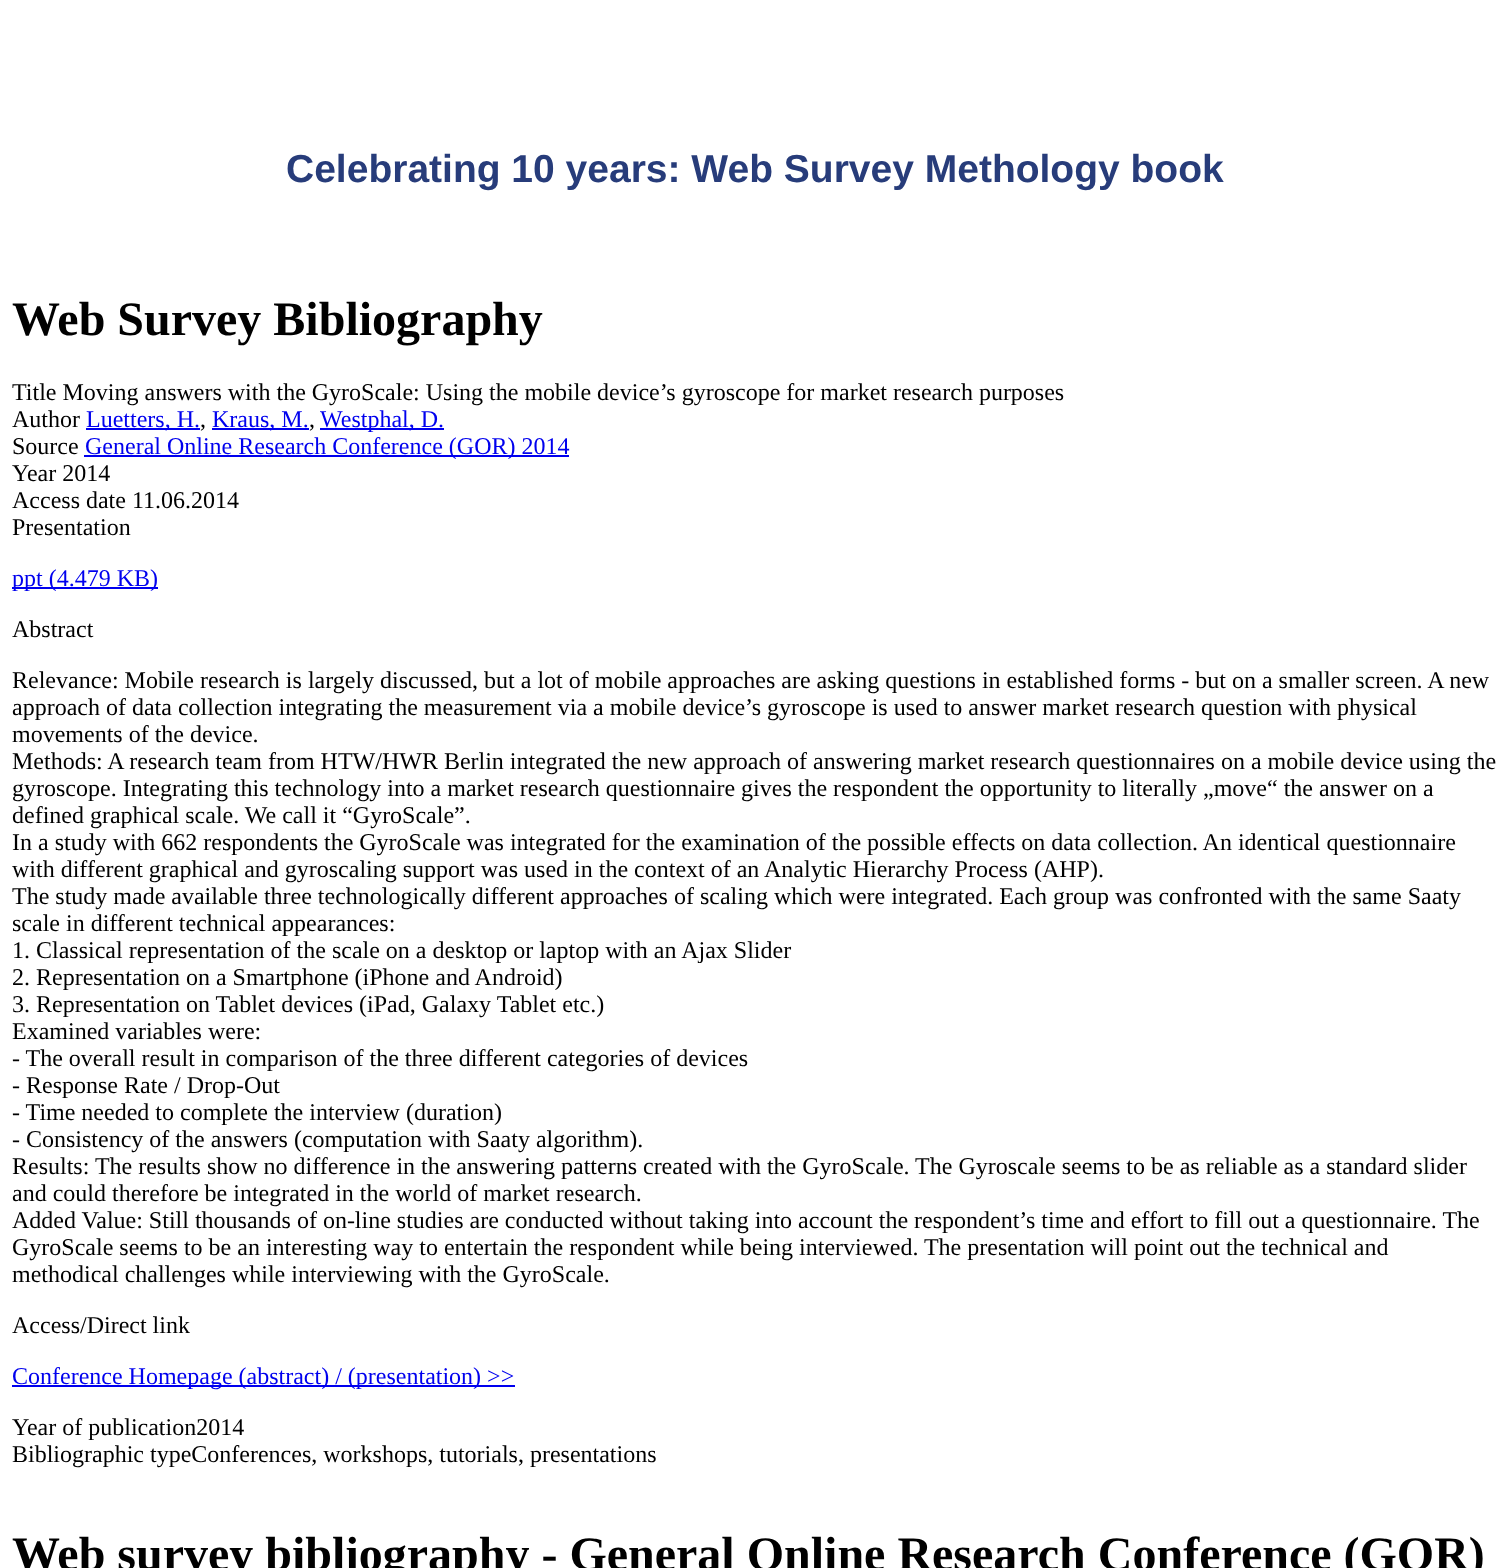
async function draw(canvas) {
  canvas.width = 1508
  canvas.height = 1568
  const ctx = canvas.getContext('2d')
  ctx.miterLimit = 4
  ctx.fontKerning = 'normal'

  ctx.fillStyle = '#fff'
  ctx.fillRect(0, 0, 1508, 1568)
  ctx.font = 'bold 39px Liberation Sans'
  ctx.fillStyle = '#273c7a'
  ctx.fillText('Celebrating 10 years: Web Survey Methology book', 286, 182)
  ctx.font = 'bold 48px Liberation Serif'
  ctx.fillStyle = '#000'
  ctx.fillText('Web Survey Bibliography', 12, 335)
  ctx.font = '24px Liberation Serif'
  ctx.fillText('Title Moving answers with the GyroScale: Using the mobile device’s gyroscope for market research purposes', 12, 400)
  ctx.fillText('Author', 12, 427)
  ctx.fillStyle = '#00e'
  ctx.fillRect(86, 428, 114, 2)
  ctx.fillText('Luetters, H.', 86, 427)
  ctx.fillStyle = '#000'
  ctx.fillText(',', 200, 427)
  ctx.fillStyle = '#00e'
  ctx.fillRect(212, 428, 97, 2)
  ctx.fillText('Kraus, M.', 212, 427)
  ctx.fillStyle = '#000'
  ctx.fillText(',', 309, 427)
  ctx.fillStyle = '#00e'
  ctx.fillRect(320, 428, 124, 2)
  ctx.fillText('Westphal, D.', 320, 427)
  ctx.fillStyle = '#000'
  ctx.fillText('Source', 12, 454)
  ctx.fillStyle = '#00e'
  ctx.fillRect(84, 455, 485, 2)
  ctx.fillText('General Online Research Conference (GOR) 2014', 85, 454)
  ctx.fillStyle = '#000'
  ctx.fillText('Year 2014', 12, 481)
  ctx.fillText('Access date 11.06.2014', 12, 508)
  ctx.fillText('Presentation', 12, 535)
  ctx.fillStyle = '#00e'
  ctx.fillRect(12, 587, 146, 2)
  ctx.fillText('ppt (4.479 KB)', 12, 586)
  ctx.fillStyle = '#000'
  ctx.fillText('Abstract', 12, 637)
  ctx.fillText('Relevance: Mobile research is largely discussed, but a lot of mobile approaches are asking questions in established forms - but on a smaller screen. A new', 12, 688)
  ctx.fillText('approach of data collection integrating the measurement via a mobile device’s gyroscope is used to answer market research question with physical', 12, 715)
  ctx.fillText('movements of the device.', 12, 742)
  ctx.fillText('Methods: A research team from HTW/HWR Berlin integrated the new approach of answering market research questionnaires on a mobile device using the', 12, 769)
  ctx.fillText('gyroscope. Integrating this technology into a market research questionnaire gives the respondent the opportunity to literally „move“ the answer on a', 12, 796)
  ctx.fillText('defined graphical scale. We call it “GyroScale”.', 12, 823)
  ctx.fillText('In a study with 662 respondents the GyroScale was integrated for the examination of the possible effects on data collection. An identical questionnaire', 12, 850)
  ctx.fillText('with different graphical and gyroscaling support was used in the context of an Analytic Hierarchy Process (AHP).', 12, 877)
  ctx.fillText('The study made available three technologically different approaches of scaling which were integrated. Each group was confronted with the same Saaty', 12, 904)
  ctx.fillText('scale in different technical appearances:', 12, 931)
  ctx.fillText('1. Classical representation of the scale on a desktop or laptop with an Ajax Slider', 12, 958)
  ctx.fillText('2. Representation on a Smartphone (iPhone and Android)', 12, 985)
  ctx.fillText('3. Representation on Tablet devices (iPad, Galaxy Tablet etc.)', 12, 1012)
  ctx.fillText('Examined variables were:', 12, 1039)
  ctx.fillText('- The overall result in comparison of the three different categories of devices', 12, 1066)
  ctx.fillText('- Response Rate / Drop-Out', 12, 1093)
  ctx.fillText('- Time needed to complete the interview (duration)', 12, 1120)
  ctx.fillText('- Consistency of the answers (computation with Saaty algorithm).', 12, 1147)
  ctx.fillText('Results: The results show no difference in the answering patterns created with the GyroScale. The Gyroscale seems to be as reliable as a standard slider', 12, 1174)
  ctx.fillText('and could therefore be integrated in the world of market research.', 12, 1201)
  ctx.fillText('Added Value: Still thousands of on-line studies are conducted without taking into account the respondent’s time and effort to fill out a questionnaire. The', 12, 1228)
  ctx.fillText('GyroScale seems to be an interesting way to entertain the respondent while being interviewed. The presentation will point out the technical and', 12, 1255)
  ctx.fillText('methodical challenges while interviewing with the GyroScale.', 12, 1282)
  ctx.fillText('Access/Direct link', 12, 1333)
  ctx.fillStyle = '#00e'
  ctx.fillRect(12, 1385, 503, 2)
  ctx.fillText('Conference Homepage (abstract) / (presentation) >>', 12, 1384)
  ctx.fillStyle = '#000'
  ctx.fillText('Year of publication2014', 12, 1435)
  ctx.fillText('Bibliographic typeConferences, workshops, tutorials, presentations', 12, 1462)
  ctx.font = 'bold 48px Liberation Serif'
  ctx.fillText('Web survey bibliography - General Online Research Conference (GOR)', 12, 1570)
}

draw(document.querySelector('canvas'))
